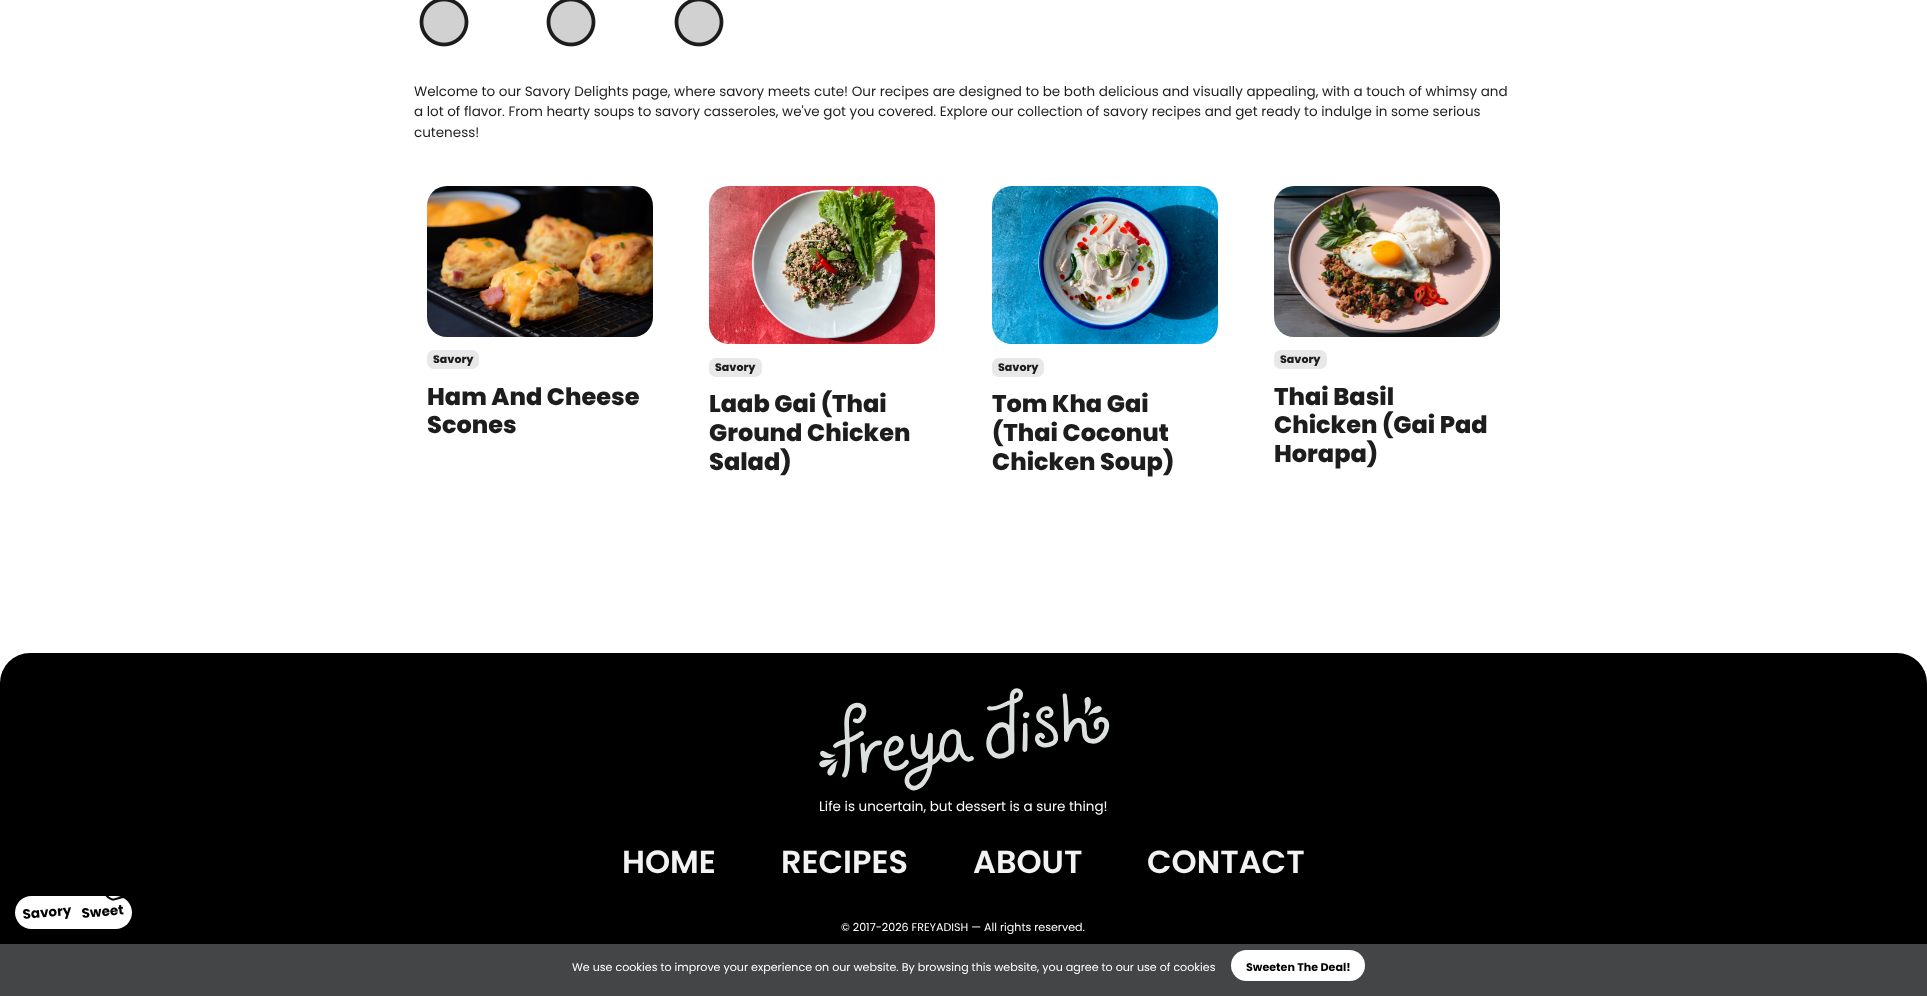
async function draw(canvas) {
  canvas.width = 1927
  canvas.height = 996
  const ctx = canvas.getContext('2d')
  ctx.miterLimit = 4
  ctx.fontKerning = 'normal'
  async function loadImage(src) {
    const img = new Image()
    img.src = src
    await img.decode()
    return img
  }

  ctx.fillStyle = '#fff'
  ctx.fillRect(0, 0, 1927, 996)
  ctx.drawImage(await loadImage('image0.png'), 419, 0, 50, 47)
  ctx.drawImage(await loadImage('image0.png'), 546, 0, 50, 47)
  ctx.drawImage(await loadImage('image0.png'), 674, 0, 50, 47)
  ctx.font = '13.5px Poppins'
  ctx.fillStyle = '#1d1d1e'
  ctx.fillText('Welcome to our Savory Delights page, where savory meets cute! Our recipes are designed to be both delicious and visually appealing, with a touch of whimsy and', 414, 96)
  ctx.fillText('a lot of flavor. From hearty soups to savory casseroles, we\'ve got you covered. Explore our collection of savory recipes and get ready to indulge in some serious', 414, 116)
  ctx.fillText('cuteness!', 414, 137)
  ctx.drawImage(await loadImage('image1.png'), 427, 186, 226, 151)
  ctx.fillStyle = '#e8e8e8'
  ctx.beginPath()
  ctx.roundRect(427, 350, 52, 19, 7)
  ctx.fill()
  ctx.font = '800 11px Poppins'
  ctx.fillStyle = '#1d1d1e'
  ctx.fillText('Savory', 433, 363)
  ctx.font = '800 24px Poppins'
  ctx.fillText('Ham And Cheese', 427, 405)
  ctx.fillText('Scones', 427, 433)
  ctx.drawImage(await loadImage('image2.png'), 709, 186, 226, 158)
  ctx.fillStyle = '#e8e8e8'
  ctx.beginPath()
  ctx.roundRect(709, 358, 53, 19, 7)
  ctx.fill()
  ctx.font = '800 11px Poppins'
  ctx.fillStyle = '#1d1d1e'
  ctx.fillText('Savory', 715, 371)
  ctx.font = '800 24px Poppins'
  ctx.fillText('Laab Gai (Thai', 709, 412)
  ctx.fillText('Ground Chicken', 709, 441)
  ctx.fillText('Salad)', 709, 470)
  ctx.drawImage(await loadImage('image3.png'), 992, 186, 226, 158)
  ctx.fillStyle = '#e8e8e8'
  ctx.beginPath()
  ctx.roundRect(992, 358, 52, 19, 7)
  ctx.fill()
  ctx.font = '800 11px Poppins'
  ctx.fillStyle = '#1d1d1e'
  ctx.fillText('Savory', 998, 371)
  ctx.font = '800 24px Poppins'
  ctx.fillText('Tom Kha Gai', 992, 412)
  ctx.fillText('(Thai Coconut', 992, 441)
  ctx.fillText('Chicken Soup)', 992, 470)
  ctx.drawImage(await loadImage('image4.png'), 1274, 186, 226, 151)
  ctx.fillStyle = '#e8e8e8'
  ctx.beginPath()
  ctx.roundRect(1274, 350, 53, 19, 7)
  ctx.fill()
  ctx.font = '800 11px Poppins'
  ctx.fillStyle = '#1d1d1e'
  ctx.fillText('Savory', 1280, 363)
  ctx.font = '800 24px Poppins'
  ctx.fillText('Thai Basil', 1274, 405)
  ctx.fillText('Chicken (Gai Pad', 1274, 433)
  ctx.fillText('Horapa)', 1274, 462)
  ctx.fillStyle = '#000'
  ctx.beginPath()
  ctx.roundRect(0, 653, 1927, 343, [30, 30, 0, 0])
  ctx.fill()
  ctx.fillStyle = '#fff'
  ctx.beginPath()
  ctx.roundRect(15, 896, 117, 33, 16.5)
  ctx.fill()
  ctx.drawImage(await loadImage('image5.png'), 105, 896, 19, 5)
  ctx.font = 'bold 13.5px Poppins'
  ctx.fillStyle = '#000'
  ctx.save()
  ctx.translate(23, 919)
  ctx.rotate(-5 * Math.PI / 180)
  ctx.fillText('Savory', 0, 0)
  ctx.restore()
  ctx.save()
  ctx.translate(82, 918)
  ctx.rotate(-5 * Math.PI / 180)
  ctx.fillText('Sweet', 0, 0)
  ctx.restore()
  ctx.drawImage(await loadImage('image6.png'), 819, 688, 291, 103)
  ctx.font = '13.5px Poppins'
  ctx.fillStyle = '#fff'
  ctx.fillText('Life is uncertain, but dessert is a sure thing!', 819, 811)
  ctx.font = '600 32px Poppins'
  ctx.fillStyle = '#f2f2f2'
  ctx.fillText('HOME', 622, 873)
  ctx.fillText('RECIPES', 781, 873)
  ctx.fillText('ABOUT', 973, 873)
  ctx.fillText('CONTACT', 1147, 873)
  ctx.font = '11.1px Poppins'
  ctx.fillStyle = '#fff'
  ctx.fillText('© 2017-2026 FREYADISH — All rights reserved.', 841, 931)
  ctx.fillStyle = '#444546'
  ctx.fillRect(0, 944, 1927, 52)
  ctx.fillStyle = '#fff'
  ctx.fillText('We use cookies to improve your experience on our website. By browsing this website, you agree to our use of cookies', 572, 971)
  ctx.beginPath()
  ctx.roundRect(1231, 950, 134, 31, 15.5)
  ctx.fill()
  ctx.font = 'bold 11.1px Poppins'
  ctx.fillStyle = '#000'
  ctx.fillText('Sweeten The Deal!', 1246, 971)
}

draw(document.querySelector('canvas'))
